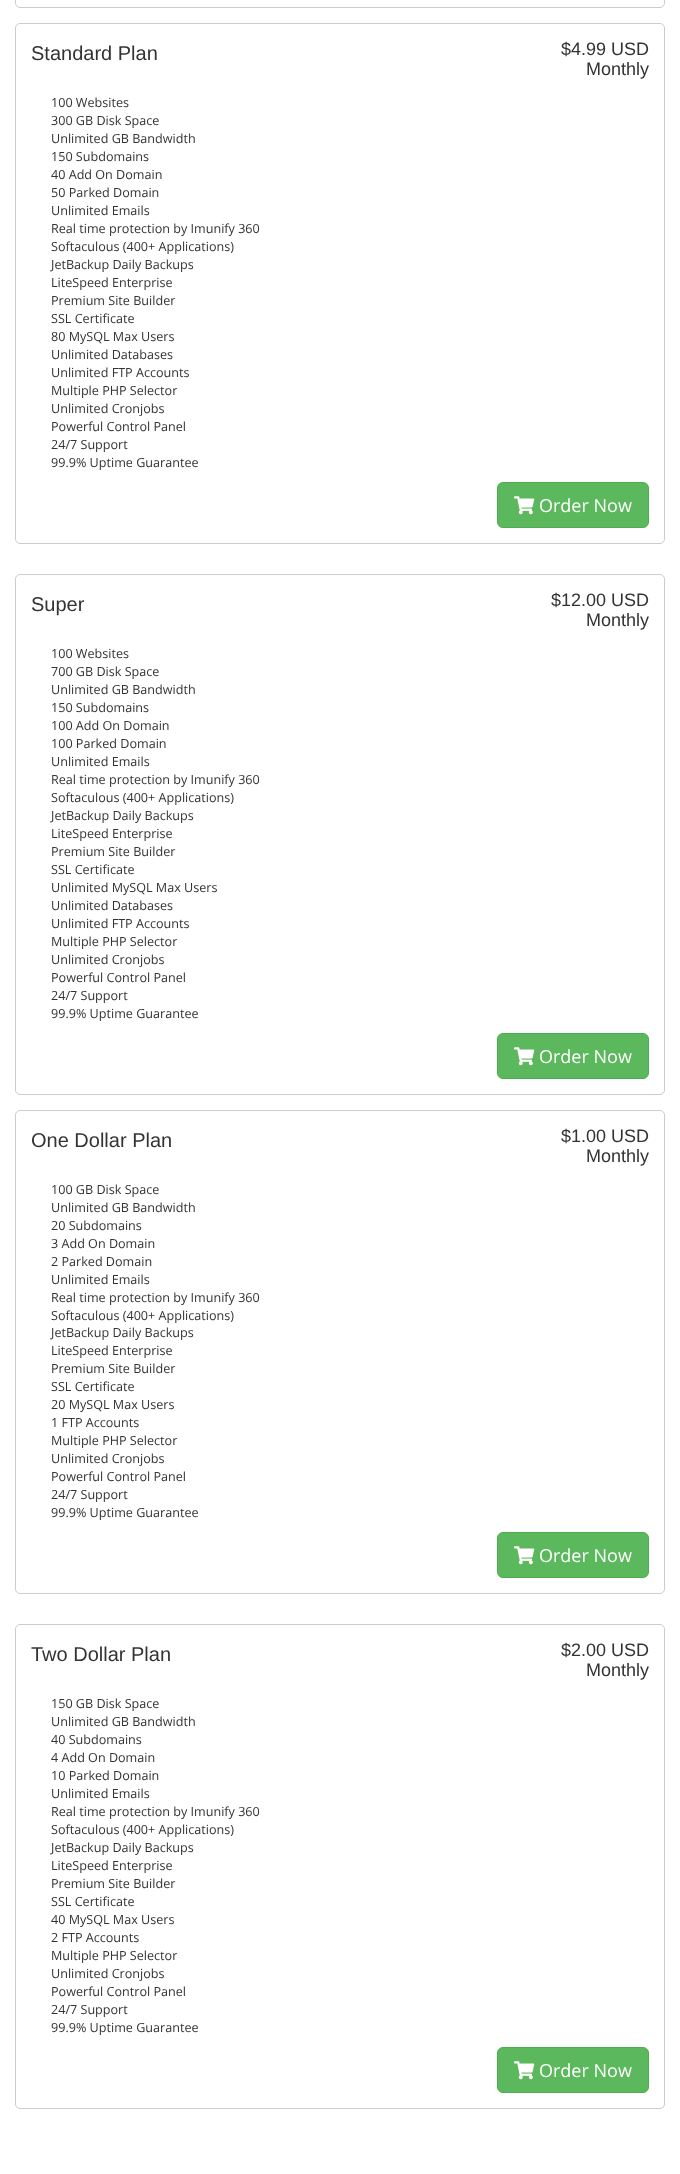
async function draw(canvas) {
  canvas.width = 680
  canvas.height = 2174
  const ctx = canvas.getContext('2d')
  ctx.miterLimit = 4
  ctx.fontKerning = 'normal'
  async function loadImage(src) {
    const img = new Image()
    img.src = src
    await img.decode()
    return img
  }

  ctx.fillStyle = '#fff'
  ctx.fillRect(0, 0, 680, 2174)
  ctx.beginPath()
  ctx.roundRect(15.5, -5.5, 649, 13, 4.5)
  ctx.strokeStyle = '#ccc'
  ctx.stroke()
  ctx.beginPath()
  ctx.roundRect(15.5, 23.5, 649, 520, 4.5)
  ctx.stroke()
  ctx.font = '20px Liberation Sans'
  ctx.fillStyle = '#333'
  ctx.fillText('Standard Plan', 31, 60)
  ctx.font = '18px Liberation Sans'
  ctx.fillText('$4.99 USD', 561, 55)
  ctx.fillText('Monthly', 586, 75)
  ctx.font = '12.6px Open Sans'
  ctx.fillText('100 Websites', 51, 107)
  ctx.fillText('300 GB Disk Space', 51, 125)
  ctx.fillText('Unlimited GB Bandwidth', 51, 143)
  ctx.fillText('150 Subdomains', 51, 161)
  ctx.fillText('40 Add On Domain', 51, 179)
  ctx.fillText('50 Parked Domain', 51, 197)
  ctx.fillText('Unlimited Emails', 51, 215)
  ctx.fillText('Real time protection by Imunify 360', 51, 233)
  ctx.fillText('Softaculous (400+ Applications)', 51, 251)
  ctx.fillText('JetBackup Daily Backups', 51, 269)
  ctx.fillText('LiteSpeed Enterprise', 51, 287)
  ctx.fillText('Premium Site Builder', 51, 305)
  ctx.fillText('SSL Certificate', 51, 323)
  ctx.fillText('80 MySQL Max Users', 51, 341)
  ctx.fillText('Unlimited Databases', 51, 359)
  ctx.fillText('Unlimited FTP Accounts', 51, 377)
  ctx.fillText('Multiple PHP Selector', 51, 395)
  ctx.fillText('Unlimited Cronjobs', 51, 413)
  ctx.fillText('Powerful Control Panel', 51, 431)
  ctx.fillText('24/7 Support', 51, 449)
  ctx.fillText('99.9% Uptime Guarantee', 51, 467)
  ctx.fillStyle = '#5cb85c'
  ctx.beginPath()
  ctx.roundRect(497.5, 482.5, 151, 45, 5.5)
  ctx.fill()
  ctx.strokeStyle = '#4cae4c'
  ctx.stroke()
  ctx.drawImage(await loadImage('image0.png'), 514, 496, 21, 19)
  ctx.font = '18px Open Sans'
  ctx.fillStyle = '#fff'
  ctx.fillText('Order Now', 539, 512)
  ctx.beginPath()
  ctx.roundRect(15.5, 574.5, 649, 520, 4.5)
  ctx.strokeStyle = '#ccc'
  ctx.stroke()
  ctx.font = '20px Liberation Sans'
  ctx.fillStyle = '#333'
  ctx.fillText('Super', 31, 611)
  ctx.font = '18px Liberation Sans'
  ctx.fillText('$12.00 USD', 551, 606)
  ctx.fillText('Monthly', 586, 626)
  ctx.font = '12.6px Open Sans'
  ctx.fillText('100 Websites', 51, 658)
  ctx.fillText('700 GB Disk Space', 51, 676)
  ctx.fillText('Unlimited GB Bandwidth', 51, 694)
  ctx.fillText('150 Subdomains', 51, 712)
  ctx.fillText('100 Add On Domain', 51, 730)
  ctx.fillText('100 Parked Domain', 51, 748)
  ctx.fillText('Unlimited Emails', 51, 766)
  ctx.fillText('Real time protection by Imunify 360', 51, 784)
  ctx.fillText('Softaculous (400+ Applications)', 51, 802)
  ctx.fillText('JetBackup Daily Backups', 51, 820)
  ctx.fillText('LiteSpeed Enterprise', 51, 838)
  ctx.fillText('Premium Site Builder', 51, 856)
  ctx.fillText('SSL Certificate', 51, 874)
  ctx.fillText('Unlimited MySQL Max Users', 51, 892)
  ctx.fillText('Unlimited Databases', 51, 910)
  ctx.fillText('Unlimited FTP Accounts', 51, 928)
  ctx.fillText('Multiple PHP Selector', 51, 946)
  ctx.fillText('Unlimited Cronjobs', 51, 964)
  ctx.fillText('Powerful Control Panel', 51, 982)
  ctx.fillText('24/7 Support', 51, 1000)
  ctx.fillText('99.9% Uptime Guarantee', 51, 1018)
  ctx.fillStyle = '#5cb85c'
  ctx.beginPath()
  ctx.roundRect(497.5, 1033.5, 151, 45, 5.5)
  ctx.fill()
  ctx.strokeStyle = '#4cae4c'
  ctx.stroke()
  ctx.drawImage(await loadImage('image0.png'), 514, 1047, 21, 19)
  ctx.font = '18px Open Sans'
  ctx.fillStyle = '#fff'
  ctx.fillText('Order Now', 539, 1063)
  ctx.beginPath()
  ctx.roundRect(15.5, 1110.5, 649, 483, 4.5)
  ctx.strokeStyle = '#ccc'
  ctx.stroke()
  ctx.font = '20px Liberation Sans'
  ctx.fillStyle = '#333'
  ctx.fillText('One Dollar Plan', 31, 1147)
  ctx.font = '18px Liberation Sans'
  ctx.fillText('$1.00 USD', 561, 1142)
  ctx.fillText('Monthly', 586, 1162)
  ctx.font = '12.6px Open Sans'
  ctx.fillText('100 GB Disk Space', 51, 1194)
  ctx.fillText('Unlimited GB Bandwidth', 51, 1212)
  ctx.fillText('20 Subdomains', 51, 1230)
  ctx.fillText('3 Add On Domain', 51, 1248)
  ctx.fillText('2 Parked Domain', 51, 1266)
  ctx.fillText('Unlimited Emails', 51, 1284)
  ctx.fillText('Real time protection by Imunify 360', 51, 1302)
  ctx.fillText('Softaculous (400+ Applications)', 51, 1320)
  ctx.fillText('JetBackup Daily Backups', 51, 1337)
  ctx.fillText('LiteSpeed Enterprise', 51, 1355)
  ctx.fillText('Premium Site Builder', 51, 1373)
  ctx.fillText('SSL Certificate', 51, 1391)
  ctx.fillText('20 MySQL Max Users', 51, 1409)
  ctx.fillText('1 FTP Accounts', 51, 1427)
  ctx.fillText('Multiple PHP Selector', 51, 1445)
  ctx.fillText('Unlimited Cronjobs', 51, 1463)
  ctx.fillText('Powerful Control Panel', 51, 1481)
  ctx.fillText('24/7 Support', 51, 1499)
  ctx.fillText('99.9% Uptime Guarantee', 51, 1517)
  ctx.fillStyle = '#5cb85c'
  ctx.beginPath()
  ctx.roundRect(497.5, 1532.5, 151, 45, 5.5)
  ctx.fill()
  ctx.strokeStyle = '#4cae4c'
  ctx.stroke()
  ctx.drawImage(await loadImage('image0.png'), 514, 1546, 21, 19)
  ctx.font = '18px Open Sans'
  ctx.fillStyle = '#fff'
  ctx.fillText('Order Now', 539, 1562)
  ctx.beginPath()
  ctx.roundRect(15.5, 1624.5, 649, 484, 4.5)
  ctx.strokeStyle = '#ccc'
  ctx.stroke()
  ctx.font = '20px Liberation Sans'
  ctx.fillStyle = '#333'
  ctx.fillText('Two Dollar Plan', 31, 1661)
  ctx.font = '18px Liberation Sans'
  ctx.fillText('$2.00 USD', 561, 1656)
  ctx.fillText('Monthly', 586, 1676)
  ctx.font = '12.6px Open Sans'
  ctx.fillText('150 GB Disk Space', 51, 1708)
  ctx.fillText('Unlimited GB Bandwidth', 51, 1726)
  ctx.fillText('40 Subdomains', 51, 1744)
  ctx.fillText('4 Add On Domain', 51, 1762)
  ctx.fillText('10 Parked Domain', 51, 1780)
  ctx.fillText('Unlimited Emails', 51, 1798)
  ctx.fillText('Real time protection by Imunify 360', 51, 1816)
  ctx.fillText('Softaculous (400+ Applications)', 51, 1834)
  ctx.fillText('JetBackup Daily Backups', 51, 1852)
  ctx.fillText('LiteSpeed Enterprise', 51, 1870)
  ctx.fillText('Premium Site Builder', 51, 1888)
  ctx.fillText('SSL Certificate', 51, 1906)
  ctx.fillText('40 MySQL Max Users', 51, 1924)
  ctx.fillText('2 FTP Accounts', 51, 1942)
  ctx.fillText('Multiple PHP Selector', 51, 1960)
  ctx.fillText('Unlimited Cronjobs', 51, 1978)
  ctx.fillText('Powerful Control Panel', 51, 1996)
  ctx.fillText('24/7 Support', 51, 2014)
  ctx.fillText('99.9% Uptime Guarantee', 51, 2032)
  ctx.fillStyle = '#5cb85c'
  ctx.beginPath()
  ctx.roundRect(497.5, 2047.5, 151, 45, 5.5)
  ctx.fill()
  ctx.strokeStyle = '#4cae4c'
  ctx.stroke()
  ctx.drawImage(await loadImage('image0.png'), 514, 2061, 21, 19)
  ctx.font = '18px Open Sans'
  ctx.fillStyle = '#fff'
  ctx.fillText('Order Now', 539, 2077)
}

draw(document.querySelector('canvas'))
